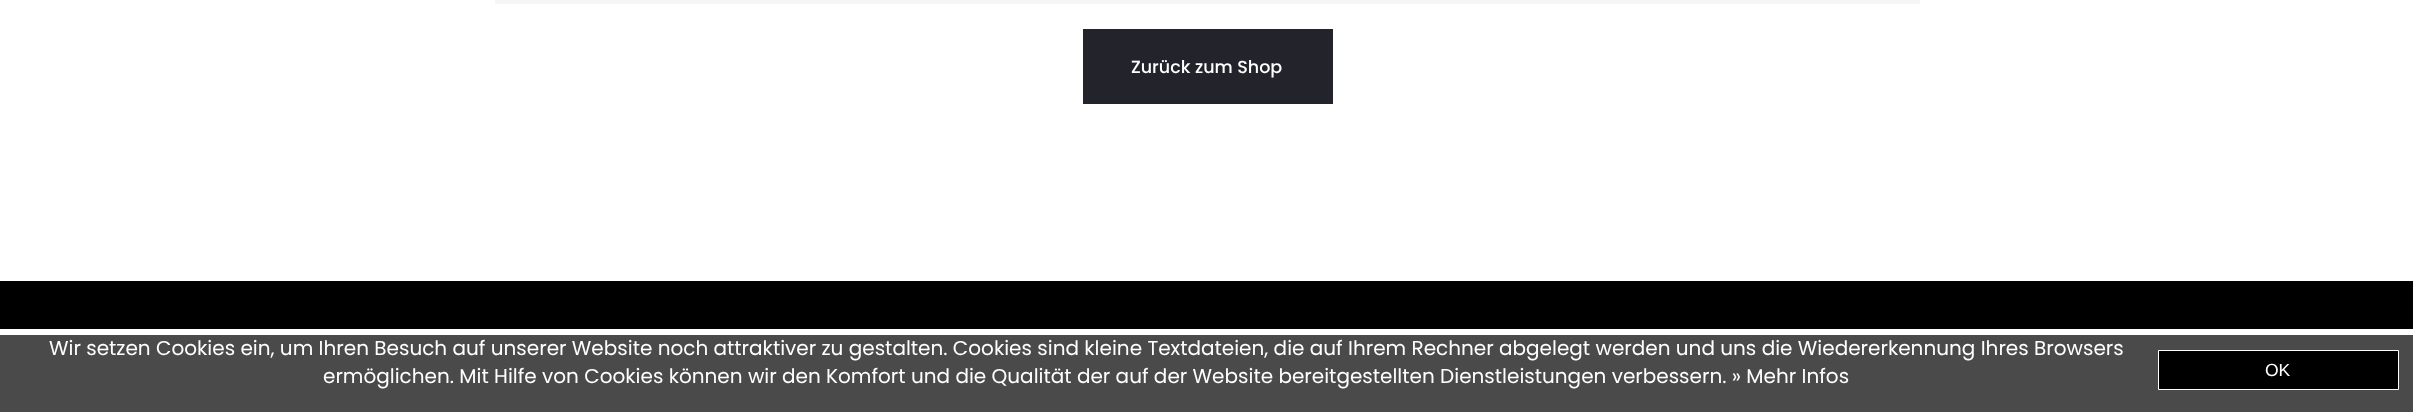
async function draw(canvas) {
  canvas.width = 2413
  canvas.height = 412
  const ctx = canvas.getContext('2d')
  ctx.miterLimit = 4
  ctx.fontKerning = 'normal'

  ctx.fillStyle = '#fff'
  ctx.fillRect(0, 0, 2413, 412)
  ctx.fillStyle = '#f6f5f8'
  ctx.fillRect(495, 0, 1425, 4)
  ctx.fillStyle = '#23232c'
  ctx.fillRect(1083, 29, 250, 75)
  ctx.font = '500 17.5px Poppins'
  ctx.fillStyle = '#fff'
  ctx.fillText('Zurück zum Shop', 1131, 73)
  ctx.fillStyle = '#000'
  ctx.fillRect(0, 281, 2413, 48)
  ctx.fillStyle = '#4a4a4a'
  ctx.fillRect(0, 335, 2413, 77)
  ctx.font = '20px Poppins'
  ctx.fillStyle = '#fff'
  ctx.fillText('Wir setzen Cookies ein, um Ihren Besuch auf unserer Website noch attraktiver zu gestalten. Cookies sind kleine Textdateien, die auf Ihrem Rechner abgelegt werden und uns die Wiedererkennung Ihres Browsers', 49, 355)
  ctx.fillText('ermöglichen. Mit Hilfe von Cookies können wir den Komfort und die Qualität der auf der Website bereitgestellten Dienstleistungen verbessern. » Mehr Infos', 323, 383)
  ctx.fillStyle = '#000'
  ctx.beginPath()
  ctx.rect(2158.5, 350.5, 240, 39)
  ctx.fill()
  ctx.strokeStyle = '#fff'
  ctx.stroke()
  ctx.font = '17.5px Liberation Sans'
  ctx.fillStyle = '#fff'
  ctx.fillText('OK', 2265, 376)
}

draw(document.querySelector('canvas'))
